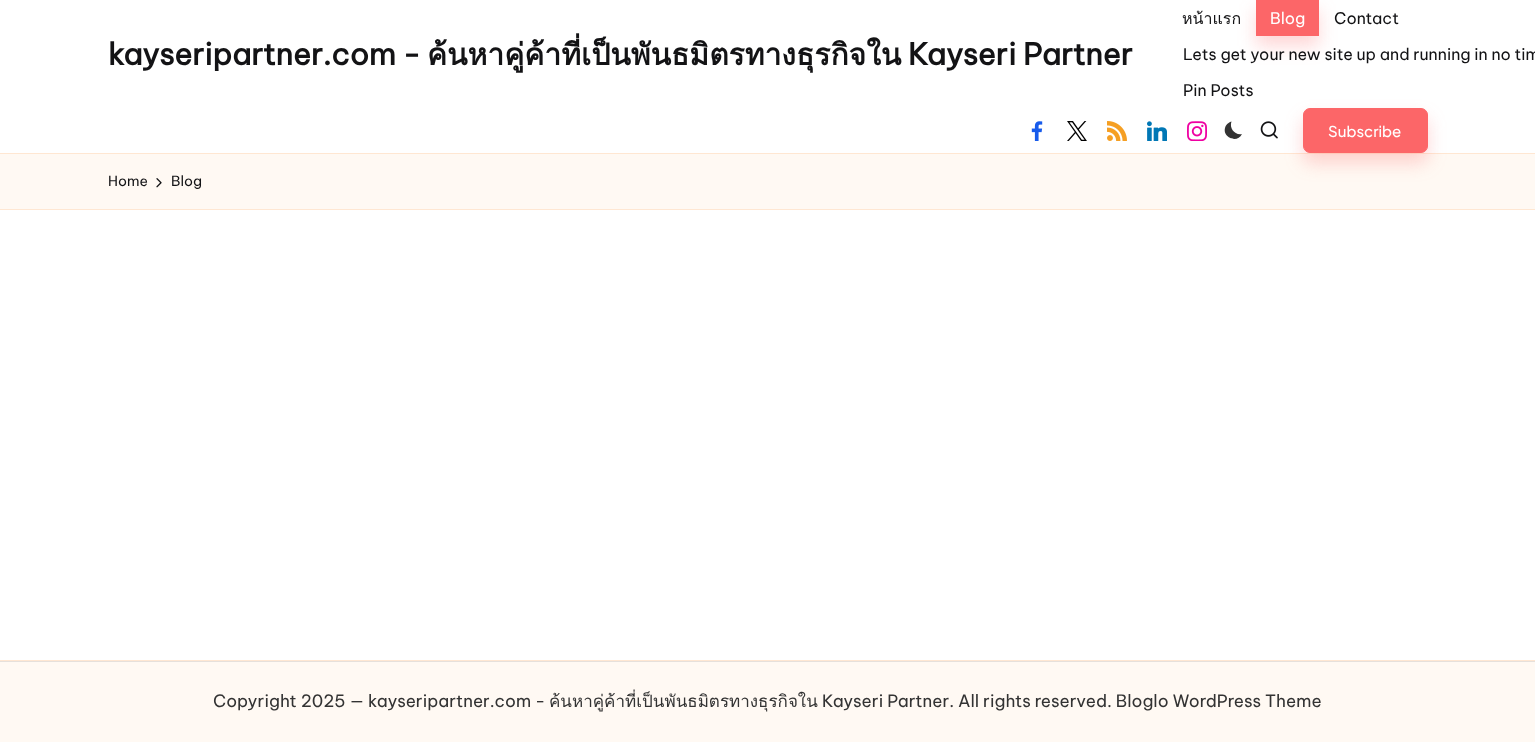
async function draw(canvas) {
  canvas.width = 1535
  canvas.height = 742
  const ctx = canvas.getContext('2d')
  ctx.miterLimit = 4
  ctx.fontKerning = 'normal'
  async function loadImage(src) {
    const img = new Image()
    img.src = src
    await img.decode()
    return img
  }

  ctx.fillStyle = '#fff'
  ctx.fillRect(0, 0, 1535, 742)
  ctx.font = 'bold 30px Be Vietnam Pro'
  ctx.fillStyle = '#131315'
  ctx.fillText('kayseripartner.com -', 108, 65)
  ctx.font = 'bold 30px Loma'
  ctx.fillText('ค้นหาคู่ค้าที่เป็นพันธมิตรทางธุรกิจใน', 427, 65)
  ctx.font = 'bold 30px Be Vietnam Pro'
  ctx.fillText('Kayseri Partner', 908, 65)
  ctx.font = '16px Loma'
  ctx.fillText('หน้าแรก', 1182, 24)
  ctx.fillStyle = '#fc666845'
  ctx.filter = 'blur(9px)'
  ctx.beginPath()
  ctx.rect(1256, 10, 63, 36)
  ctx.fill()
  ctx.filter = 'none'
  ctx.fillStyle = '#fc6668'
  ctx.fillRect(1256, 0, 63, 36)
  ctx.font = '16px Be Vietnam Pro'
  ctx.fillStyle = '#fff'
  ctx.fillText('Blog', 1270, 24)
  ctx.fillStyle = '#131315'
  ctx.fillText('Contact', 1334, 24)
  ctx.fillText('Lets get your new site up and running in no tim', 1183, 60)
  ctx.fillText('Pin Posts', 1183, 96)
  ctx.drawImage(await loadImage('image0.png'), 1031, 121, 12, 20)
  ctx.drawImage(await loadImage('image1.png'), 1067, 121, 20, 20)
  ctx.drawImage(await loadImage('image2.png'), 1107, 121, 20, 20)
  ctx.drawImage(await loadImage('image3.png'), 1147, 121, 20, 20)
  ctx.drawImage(await loadImage('image4.png'), 1187, 121, 20, 20)
  ctx.fillStyle = '#333'
  ctx.beginPath()
  ctx.moveTo(1242, 134)
  ctx.bezierCurveTo(1235, 135.5, 1229, 128.5, 1231.5, 121.5)
  ctx.bezierCurveTo(1229.5, 122, 1227.5, 123.5, 1226, 125.5)
  ctx.bezierCurveTo(1220, 136.5, 1237, 144.5, 1242, 134)
  ctx.closePath()
  ctx.fill()
  ctx.drawImage(await loadImage('image5.png'), 1260, 121, 18, 18)
  ctx.fillStyle = '#fff9f3'
  ctx.fillRect(0, 154, 1535, 55)
  ctx.fillStyle = '#ffe7d2'
  ctx.fillRect(0, 153, 1535, 1)
  ctx.fillStyle = '#fc666845'
  ctx.filter = 'blur(9px)'
  ctx.beginPath()
  ctx.roundRect(1303, 118, 125, 45, 7)
  ctx.fill()
  ctx.filter = 'none'
  ctx.fillStyle = '#fc6668'
  ctx.beginPath()
  ctx.roundRect(1303.5, 108.5, 124, 44, 6.5)
  ctx.fill()
  ctx.strokeStyle = '#fc6668'
  ctx.stroke()
  ctx.font = '500 15px Plus Jakarta Sans'
  ctx.fillStyle = '#fff'
  ctx.fillText('Subscribe', 1328, 137)
  ctx.fillStyle = '#ffe7d2'
  ctx.fillRect(0, 209, 1535, 1)
  ctx.font = '14px Be Vietnam Pro'
  ctx.fillStyle = '#131315'
  ctx.fillText('Home', 108, 186)
  ctx.drawImage(await loadImage('image6.png'), 156, 178, 6, 10)
  ctx.fillText('Blog', 171, 186)
  ctx.fillStyle = '#fff9f3'
  ctx.fillRect(0, 662, 1535, 80)
  ctx.fillStyle = '#ffe7d2'
  ctx.fillRect(0, 660, 1535, 1)
  ctx.fillStyle = '#e6e0db'
  ctx.fillRect(0, 661, 1535, 1)
  ctx.font = '17px Be Vietnam Pro'
  ctx.fillStyle = '#333'
  ctx.fillText('Copyright 2025 — kayseripartner.com -', 213, 707)
  ctx.font = '17px Loma'
  ctx.fillText('ค้นหาคู่ค้าที่เป็นพันธมิตรทางธุรกิจใน', 549, 707)
  ctx.font = '17px Be Vietnam Pro'
  ctx.fillText('Kayseri Partner. All rights reserved. Bloglo WordPress Theme', 822, 707)
}

draw(document.querySelector('canvas'))
